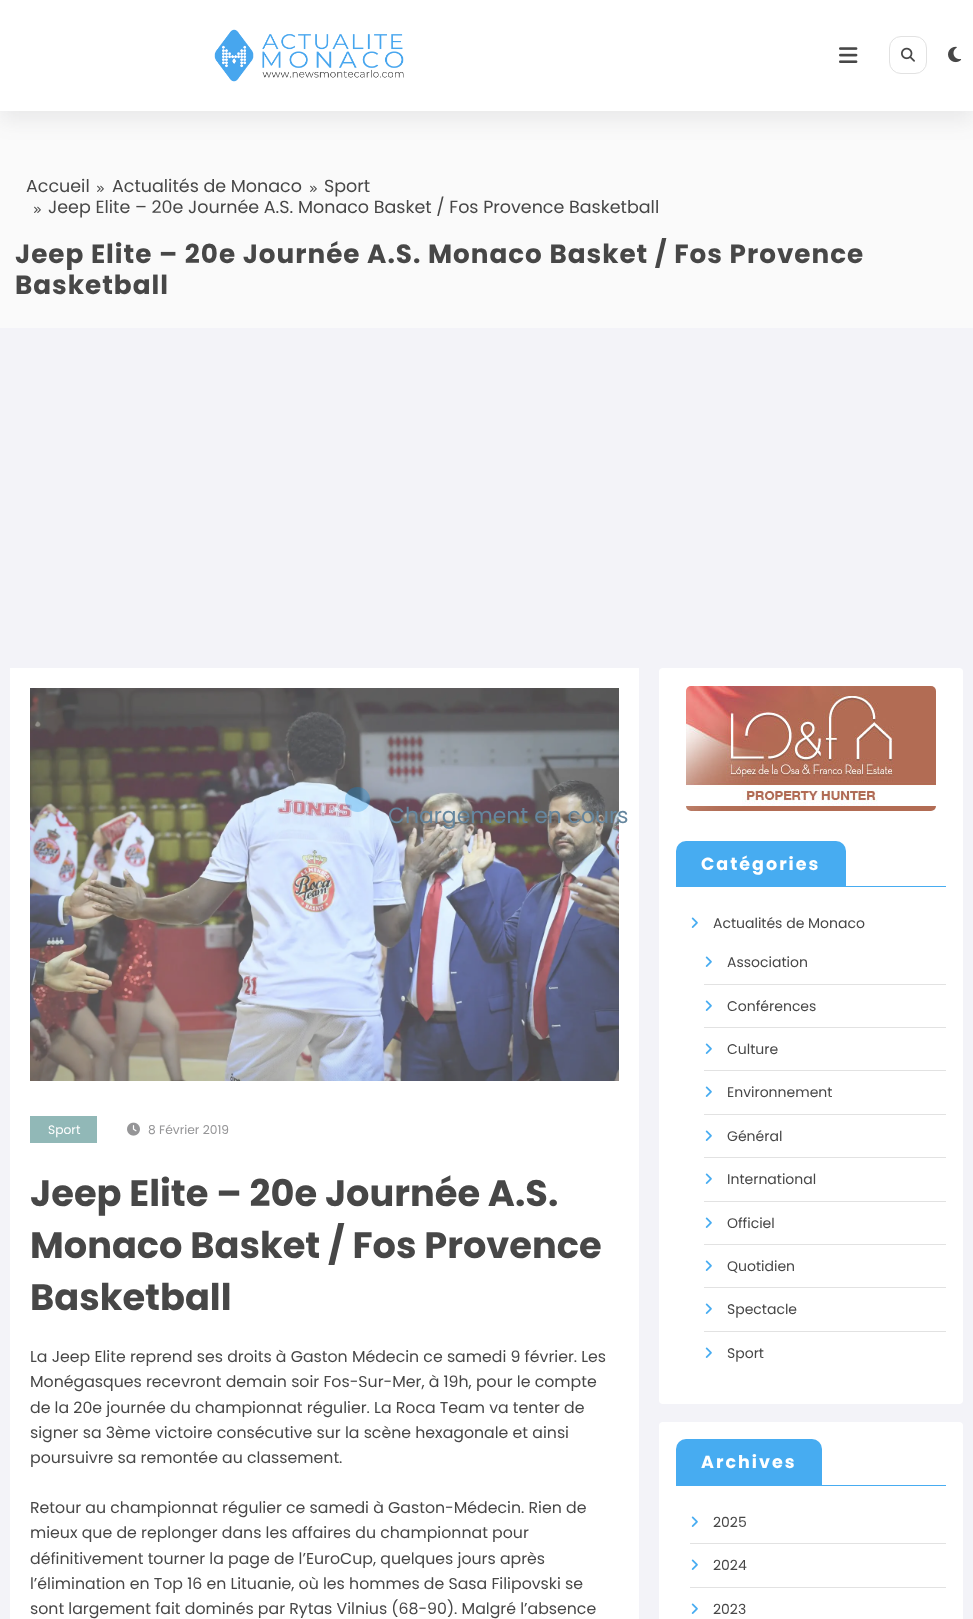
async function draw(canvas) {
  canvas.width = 973
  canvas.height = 1619
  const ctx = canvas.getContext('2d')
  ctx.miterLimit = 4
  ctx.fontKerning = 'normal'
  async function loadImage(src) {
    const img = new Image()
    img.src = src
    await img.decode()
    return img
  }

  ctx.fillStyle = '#f3f3f8'
  ctx.fillRect(0, 0, 973, 1619)
  ctx.fillStyle = '#fafafa'
  ctx.fillRect(0, 111, 973, 217)
  ctx.fillStyle = '#5654611a'
  ctx.filter = 'blur(10px)'
  ctx.beginPath()
  ctx.rect(0, 10, 973, 111)
  ctx.fill()
  ctx.filter = 'none'
  ctx.fillStyle = '#fff'
  ctx.fillRect(0, 0, 973, 111)
  ctx.drawImage(await loadImage('image0.png'), 214, 29, 190, 53)
  ctx.drawImage(await loadImage('image1.png'), 839, 47, 19, 16)
  ctx.beginPath()
  ctx.roundRect(889.5, 36.5, 37, 37, 11.5)
  ctx.strokeStyle = '#e2e2e2'
  ctx.stroke()
  ctx.drawImage(await loadImage('image2.png'), 901, 47, 14, 15)
  ctx.drawImage(await loadImage('image3.png'), 948, 46, 14, 17)
  ctx.font = '17.5px Poppins'
  ctx.fillStyle = '#474747'
  ctx.fillText('Accueil', 26, 192)
  ctx.drawImage(await loadImage('image4.png'), 97, 185, 7, 7)
  ctx.fillText('Actualités de Monaco', 112, 192)
  ctx.drawImage(await loadImage('image4.png'), 310, 185, 7, 7)
  ctx.fillText('Sport', 324, 192)
  ctx.drawImage(await loadImage('image4.png'), 34, 206, 7, 7)
  ctx.fillText('Jeep Elite – 20e Journée A.S. Monaco Basket / Fos Provence Basketball', 48, 213)
  ctx.letterSpacing = '1px'
  ctx.font = 'bold 26.25px Poppins'
  ctx.fillText('Jeep Elite – 20e Journée A.S. Monaco Basket / Fos Provence', 15, 263)
  ctx.fillText('Basketball', 15, 294)
  ctx.fillStyle = '#fff'
  ctx.fillRect(10, 668, 629, 951)
  ctx.drawImage(await loadImage('image5.png'), 30, 688, 589, 393)
  ctx.fillStyle = '#008ceb47'
  ctx.beginPath()
  ctx.arc(357.5, 799.5, 12.5, 0, 2 * Math.PI)
  ctx.fill()
  ctx.letterSpacing = '0px'
  ctx.font = '21.9px Poppins'
  ctx.fillStyle = '#65869e'
  ctx.fillText('Chargement en cours', 388, 823)
  ctx.fillStyle = '#91b8b7'
  ctx.fillRect(30, 1116, 67, 27)
  ctx.font = '12.25px Poppins'
  ctx.fillStyle = '#fff'
  ctx.fillText('Sport', 48, 1134)
  ctx.drawImage(await loadImage('image6.png'), 127, 1122, 13, 14)
  ctx.fillStyle = '#959597'
  ctx.fillText('8 Février 2019', 148, 1134)
  ctx.font = 'bold 36.75px Poppins'
  ctx.fillStyle = '#474747'
  ctx.fillText('Jeep Elite – 20e Journée A.S.', 30, 1206)
  ctx.fillText('Monaco Basket / Fos Provence', 30, 1258)
  ctx.fillText('Basketball', 30, 1310)
  ctx.font = '15.75px Poppins'
  ctx.fillText('La Jeep Elite reprend ses droits à Gaston Médecin ce samedi 9 février. Les', 30, 1362)
  ctx.fillText('Monégasques recevront demain soir Fos-Sur-Mer, à 19h, pour le compte', 30, 1387)
  ctx.fillText('de la 20e journée du championnat régulier. La Roca Team va tenter de', 30, 1413)
  ctx.fillText('signer sa 3ème victoire consécutive sur la scène hexagonale et ainsi', 30, 1438)
  ctx.fillText('poursuivre sa remontée au classement.', 30, 1463)
  ctx.fillText('Retour au championnat régulier ce samedi à Gaston-Médecin. Rien de', 30, 1513)
  ctx.fillText('mieux que de replonger dans les affaires du championnat pour', 30, 1538)
  ctx.fillText('définitivement tourner la page de l’EuroCup, quelques jours après', 30, 1564)
  ctx.fillText('l’élimination en Top 16 en Lituanie, où les hommes de Sasa Filipovski se', 30, 1589)
  ctx.fillText('sont largement fait dominés par Rytas Vilnius (68-90). Malgré l’absence', 30, 1614)
  ctx.fillStyle = '#fff'
  ctx.beginPath()
  ctx.roundRect(659, 668, 304, 736, 4)
  ctx.fill()
  ctx.drawImage(await loadImage('image7.png'), 686, 686, 250, 125)
  ctx.fillStyle = '#47acf1'
  ctx.beginPath()
  ctx.roundRect(676, 841, 170, 46, [10, 10, 0, 0])
  ctx.fill()
  ctx.letterSpacing = '2px'
  ctx.font = 'bold 17.5px Poppins'
  ctx.fillStyle = '#fff'
  ctx.fillText('Catégories', 701, 870)
  ctx.fillStyle = '#47acf1'
  ctx.fillRect(846, 886, 100, 1)
  ctx.drawImage(await loadImage('image8.png'), 691, 917, 7, 11)
  ctx.letterSpacing = '0px'
  ctx.font = '14px Poppins'
  ctx.fillStyle = '#474747'
  ctx.fillText('Actualités de Monaco', 713, 928)
  ctx.fillStyle = '#e2e2e2'
  ctx.fillRect(704, 984, 242, 1)
  ctx.drawImage(await loadImage('image8.png'), 705, 956, 7, 11)
  ctx.fillStyle = '#474747'
  ctx.fillText('Association', 727, 967)
  ctx.fillStyle = '#e2e2e2'
  ctx.fillRect(704, 1027, 242, 1)
  ctx.drawImage(await loadImage('image8.png'), 705, 1000, 7, 11)
  ctx.fillStyle = '#474747'
  ctx.fillText('Conférences', 727, 1011)
  ctx.fillStyle = '#e2e2e2'
  ctx.fillRect(704, 1070, 242, 1)
  ctx.drawImage(await loadImage('image8.png'), 705, 1043, 7, 11)
  ctx.fillStyle = '#474747'
  ctx.fillText('Culture', 727, 1054)
  ctx.fillStyle = '#e2e2e2'
  ctx.fillRect(704, 1114, 242, 1)
  ctx.drawImage(await loadImage('image8.png'), 705, 1086, 7, 11)
  ctx.fillStyle = '#474747'
  ctx.fillText('Environnement', 727, 1097)
  ctx.fillStyle = '#e2e2e2'
  ctx.fillRect(704, 1157, 242, 1)
  ctx.drawImage(await loadImage('image8.png'), 705, 1130, 7, 11)
  ctx.fillStyle = '#474747'
  ctx.fillText('Général', 727, 1141)
  ctx.fillStyle = '#e2e2e2'
  ctx.fillRect(704, 1201, 242, 1)
  ctx.drawImage(await loadImage('image8.png'), 705, 1173, 7, 11)
  ctx.fillStyle = '#474747'
  ctx.fillText('International', 727, 1184)
  ctx.fillStyle = '#e2e2e2'
  ctx.fillRect(704, 1244, 242, 1)
  ctx.drawImage(await loadImage('image8.png'), 705, 1217, 7, 11)
  ctx.fillStyle = '#474747'
  ctx.fillText('Officiel', 727, 1228)
  ctx.fillStyle = '#e2e2e2'
  ctx.fillRect(704, 1287, 242, 1)
  ctx.drawImage(await loadImage('image8.png'), 705, 1260, 7, 11)
  ctx.fillStyle = '#474747'
  ctx.fillText('Quotidien', 727, 1271)
  ctx.fillStyle = '#e2e2e2'
  ctx.fillRect(704, 1331, 242, 1)
  ctx.drawImage(await loadImage('image8.png'), 705, 1303, 7, 11)
  ctx.fillStyle = '#474747'
  ctx.fillText('Spectacle', 727, 1314)
  ctx.drawImage(await loadImage('image8.png'), 705, 1347, 7, 11)
  ctx.fillText('Sport', 727, 1358)
  ctx.fillStyle = '#fff'
  ctx.beginPath()
  ctx.roundRect(659, 1422, 304, 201, 4)
  ctx.fill()
  ctx.fillStyle = '#47acf1'
  ctx.beginPath()
  ctx.roundRect(676, 1439, 146, 47, [10, 10, 0, 0])
  ctx.fill()
  ctx.letterSpacing = '2px'
  ctx.font = 'bold 17.5px Poppins'
  ctx.fillStyle = '#fff'
  ctx.fillText('Archives', 701, 1468)
  ctx.fillStyle = '#47acf1'
  ctx.fillRect(822, 1485, 124, 1)
  ctx.fillStyle = '#e2e2e2'
  ctx.fillRect(690, 1543, 256, 1)
  ctx.drawImage(await loadImage('image8.png'), 691, 1516, 7, 11)
  ctx.letterSpacing = '0px'
  ctx.font = '14px Poppins'
  ctx.fillStyle = '#474747'
  ctx.fillText('2025', 713, 1527)
  ctx.fillStyle = '#e2e2e2'
  ctx.fillRect(690, 1587, 256, 1)
  ctx.drawImage(await loadImage('image8.png'), 691, 1559, 7, 11)
  ctx.fillStyle = '#474747'
  ctx.fillText('2024', 713, 1570)
  ctx.drawImage(await loadImage('image8.png'), 691, 1603, 7, 11)
  ctx.fillText('2023', 713, 1614)
}

draw(document.querySelector('canvas'))
